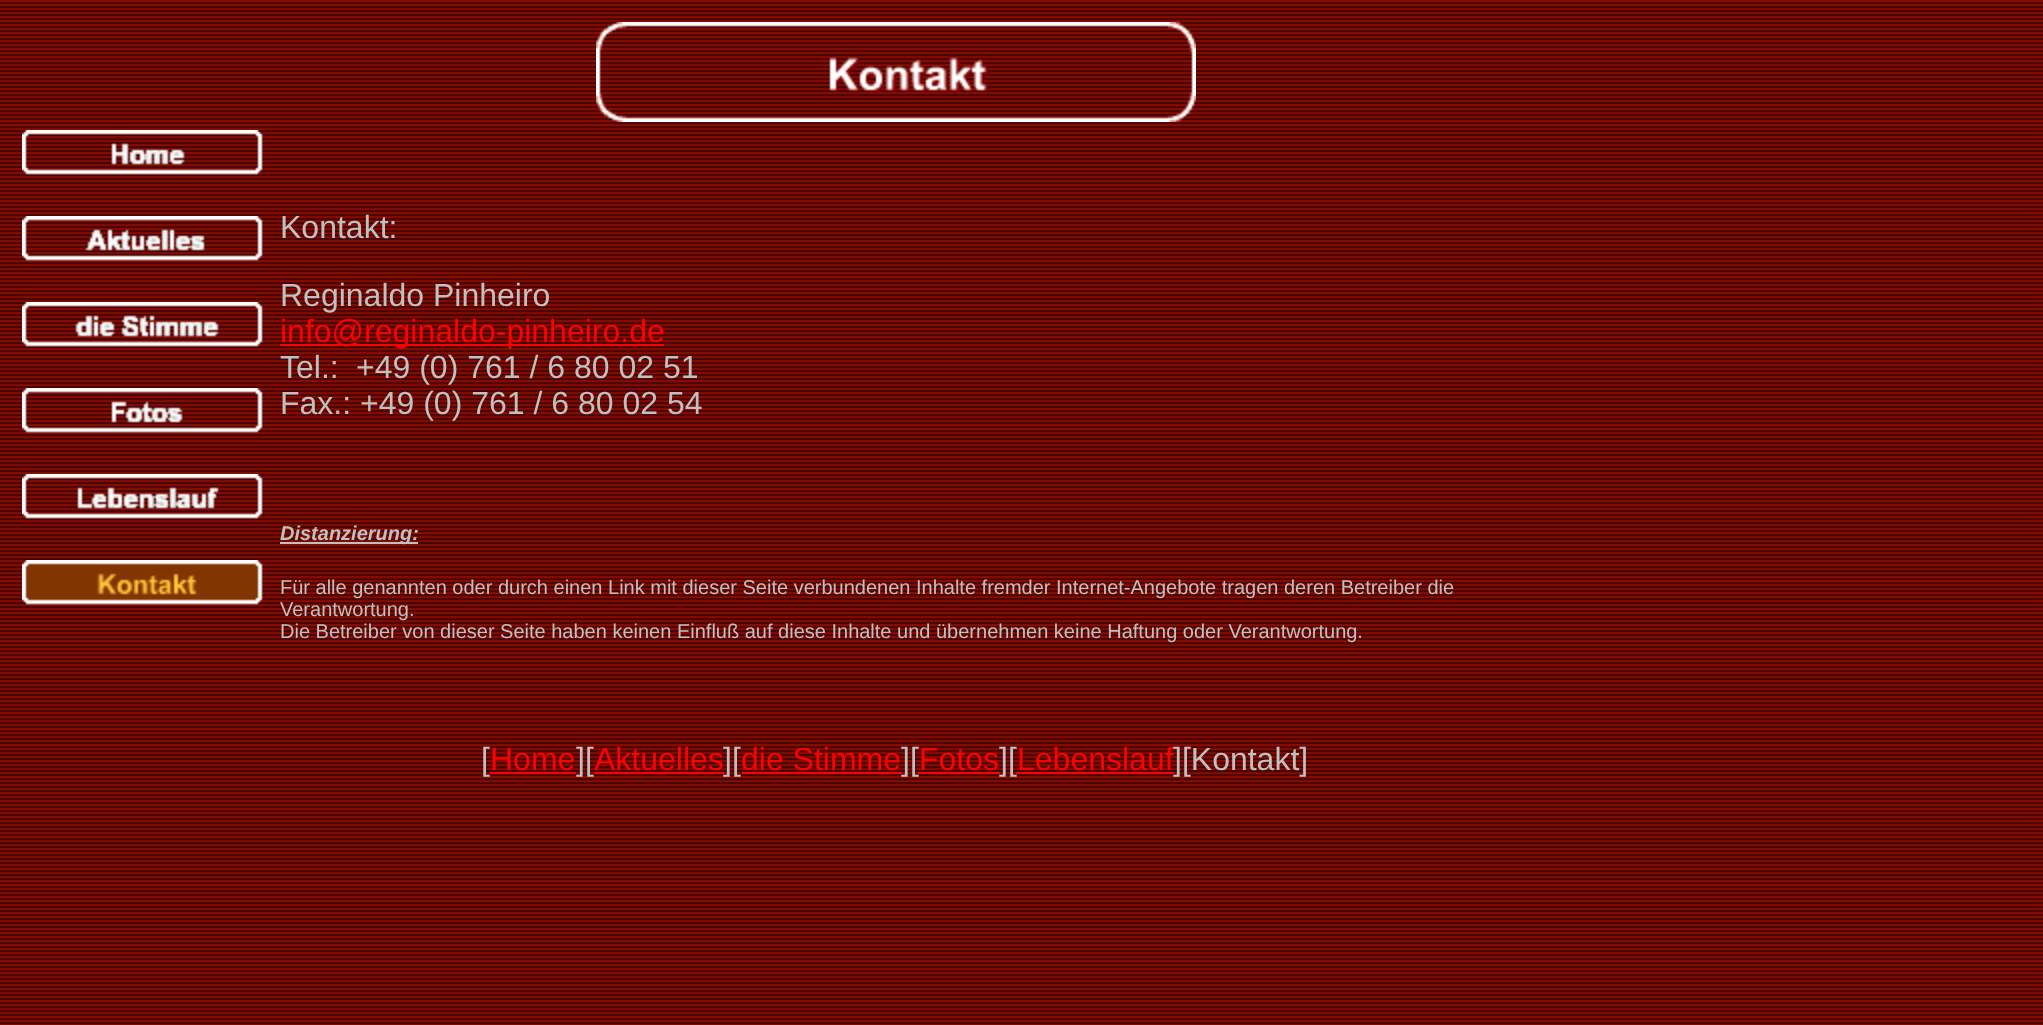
async function draw(canvas) {
  canvas.width = 2043
  canvas.height = 1025
  const ctx = canvas.getContext('2d')
  ctx.miterLimit = 4
  ctx.fontKerning = 'normal'
  async function loadImage(src) {
    const img = new Image()
    img.src = src
    await img.decode()
    return img
  }

  ctx.fillStyle = '#fff'
  ctx.fillRect(0, 0, 2043, 1025)
  ctx.drawImage(await loadImage('image0.png'), 0, 0, 2043, 1025)
  ctx.drawImage(await loadImage('image1.png'), 596, 22, 600, 100)
  ctx.drawImage(await loadImage('image2.png'), 22, 130, 241, 45)
  ctx.drawImage(await loadImage('image3.png'), 22, 216, 241, 45)
  ctx.drawImage(await loadImage('image4.png'), 22, 302, 241, 45)
  ctx.drawImage(await loadImage('image5.png'), 22, 388, 241, 45)
  ctx.drawImage(await loadImage('image6.png'), 22, 474, 241, 45)
  ctx.drawImage(await loadImage('image7.png'), 22, 560, 241, 45)
  ctx.font = '32px Liberation Sans'
  ctx.fillStyle = '#c0c0c0'
  ctx.fillText('Kontakt:', 280, 238)
  ctx.fillText('Reginaldo Pinheiro', 280, 306)
  ctx.fillStyle = '#f00'
  ctx.fillRect(280, 344, 384, 2)
  ctx.fillText('info@reginaldo-pinheiro.de', 280, 342)
  ctx.fillStyle = '#c0c0c0'
  ctx.fillText('Tel.:', 280, 378)
  ctx.fillText('+49 (0) 761 / 6 80 02 51', 356, 378)
  ctx.fillText('Fax.: +49 (0) 761 / 6 80 02 54', 280, 414)
  ctx.fillRect(280, 542, 138, 2)
  ctx.font = 'italic bold 20px Liberation Sans'
  ctx.fillText('Distanzierung:', 280, 540)
  ctx.font = '20px Liberation Sans'
  ctx.fillText('Für alle genannten oder durch einen Link mit dieser Seite verbundenen Inhalte fremder Internet-Angebote tragen deren Betreiber die', 280, 594)
  ctx.fillText('Verantwortung.', 280, 616)
  ctx.fillText('Die Betreiber von dieser Seite haben keinen Einfluß auf diese Inhalte und übernehmen keine Haftung oder Verantwortung.', 280, 638)
  ctx.font = '32px Liberation Sans'
  ctx.fillText('[', 481, 770)
  ctx.fillStyle = '#f00'
  ctx.fillText('Home', 490, 770)
  ctx.fillRect(490, 772, 86, 2)
  ctx.fillStyle = '#c0c0c0'
  ctx.fillText('][', 576, 770)
  ctx.fillStyle = '#f00'
  ctx.fillText('Aktuelles', 594, 770)
  ctx.fillRect(594, 772, 130, 2)
  ctx.fillStyle = '#c0c0c0'
  ctx.fillText('][', 723, 770)
  ctx.fillStyle = '#f00'
  ctx.fillText('die Stimme', 741, 770)
  ctx.fillRect(742, 772, 160, 2)
  ctx.fillStyle = '#c0c0c0'
  ctx.fillText('][', 901, 770)
  ctx.fillStyle = '#f00'
  ctx.fillText('Fotos', 919, 770)
  ctx.fillRect(918, 772, 82, 2)
  ctx.fillStyle = '#c0c0c0'
  ctx.fillText('][', 999, 770)
  ctx.fillStyle = '#f00'
  ctx.fillText('Lebenslauf', 1017, 770)
  ctx.fillRect(1016, 772, 158, 2)
  ctx.fillStyle = '#c0c0c0'
  ctx.fillText('][Kontakt]', 1173, 770)
}

draw(document.querySelector('canvas'))
